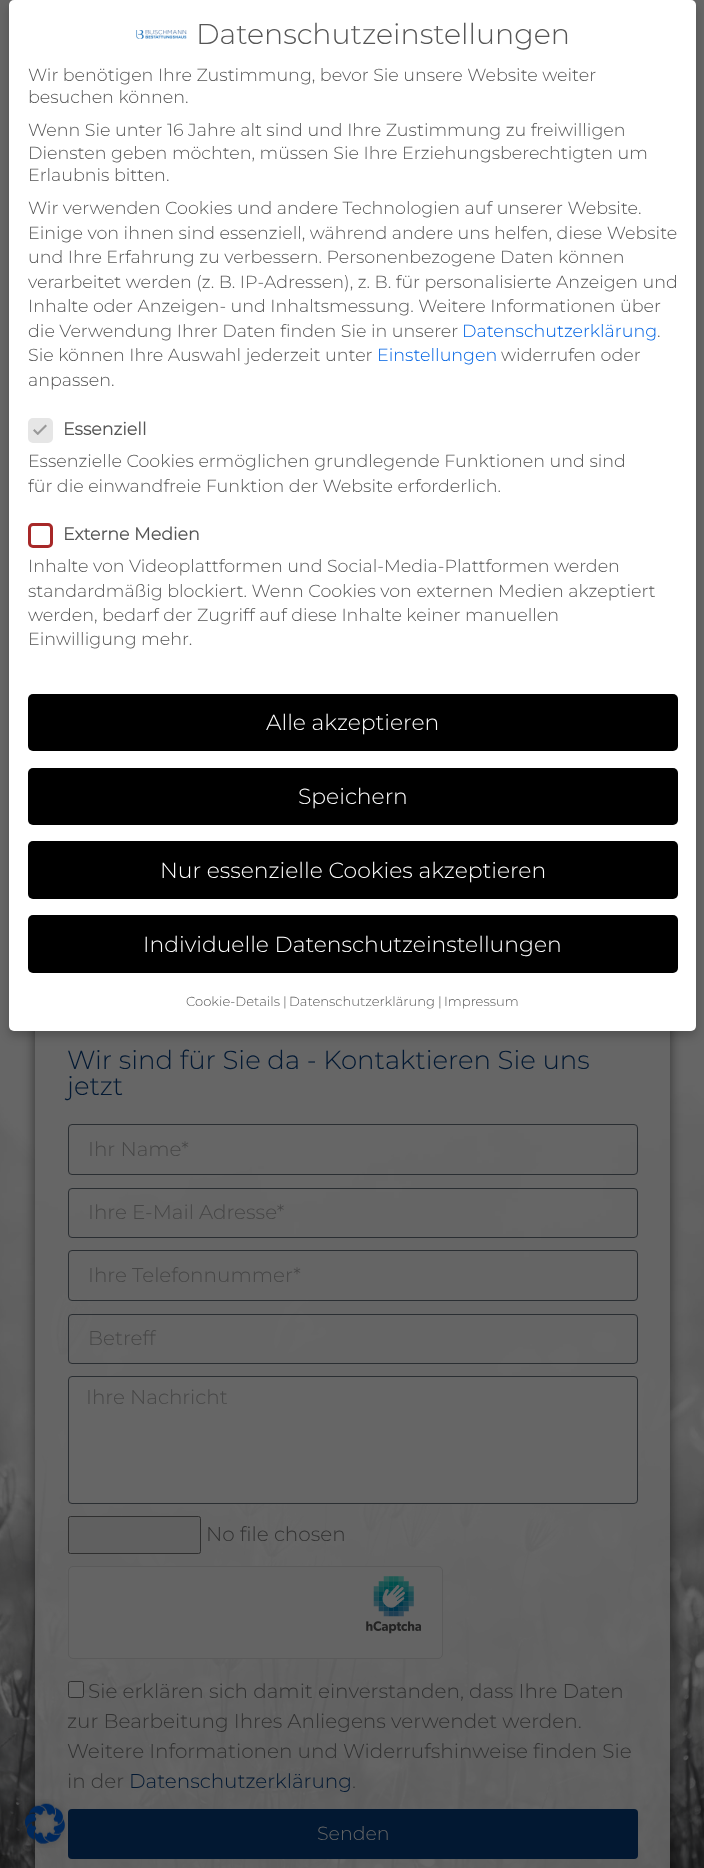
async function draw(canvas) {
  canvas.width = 704
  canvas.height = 1868
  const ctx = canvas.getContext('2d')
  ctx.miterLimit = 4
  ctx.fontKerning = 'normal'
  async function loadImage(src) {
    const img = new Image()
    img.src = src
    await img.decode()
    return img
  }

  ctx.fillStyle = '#666'
  ctx.fillRect(0, 0, 704, 1868)
  ctx.fillStyle = '#00000033'
  ctx.filter = 'blur(5px)'
  ctx.beginPath()
  ctx.roundRect(9, 5, 687, 1031, 5)
  ctx.fill()
  ctx.filter = 'none'
  ctx.drawImage(await loadImage('image2.png'), 0, 1085, 704, 783)
  ctx.save()
  ctx.beginPath()
  ctx.moveTo(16, 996)
  ctx.lineTo(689, 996)
  ctx.lineTo(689, 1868)
  ctx.lineTo(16, 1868)
  ctx.closePath()
  ctx.moveTo(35, 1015)
  ctx.lineTo(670, 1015)
  ctx.lineTo(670, 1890)
  ctx.lineTo(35, 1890)
  ctx.closePath()
  ctx.clip('evenodd')
  ctx.fillStyle = '#00000080'
  ctx.filter = 'blur(6px)'
  ctx.beginPath()
  ctx.rect(35, 1015, 635, 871)
  ctx.fill()
  ctx.filter = 'none'
  ctx.restore()
  ctx.fillStyle = '#fff'
  ctx.beginPath()
  ctx.roundRect(9, 0, 687, 1031, 5)
  ctx.fill()
  ctx.drawImage(await loadImage('image0.png'), 136, 30, 51, 9)
  ctx.font = '300 28.5px Montserrat'
  ctx.fillStyle = '#555'
  ctx.fillText('Datenschutzeinstellungen', 196, 44)
  ctx.font = '300 17.5px Montserrat'
  ctx.fillText('Wir benötigen Ihre Zustimmung, bevor Sie unsere Website weiter', 28, 81)
  ctx.fillText('besuchen können.', 28, 103)
  ctx.fillText('Wenn Sie unter 16 Jahre alt sind und Ihre Zustimmung zu freiwilligen', 28, 136)
  ctx.fillText('Diensten geben möchten, müssen Sie Ihre Erziehungsberechtigten um', 28, 159)
  ctx.fillText('Erlaubnis bitten.', 28, 181)
  ctx.fillText('Wir verwenden Cookies und andere Technologien auf unserer Website.', 28, 214)
  ctx.fillText('Einige von ihnen sind essenziell, während andere uns helfen, diese Website', 28, 239)
  ctx.fillText('und Ihre Erfahrung zu verbessern. Personenbezogene Daten können', 28, 263)
  ctx.fillText('verarbeitet werden (z. B. IP-Adressen), z. B. für personalisierte Anzeigen und', 28, 288)
  ctx.fillText('Inhalte oder Anzeigen- und Inhaltsmessung. Weitere Informationen über', 28, 312)
  ctx.fillText('die Verwendung Ihrer Daten finden Sie in unserer', 28, 337)
  ctx.fillStyle = '#0063e3'
  ctx.fillText('Datenschutzerklärung', 462, 337)
  ctx.fillStyle = '#555'
  ctx.fillText('.', 657, 337)
  ctx.fillText('Sie können Ihre Auswahl jederzeit unter', 28, 361)
  ctx.fillStyle = '#0063e3'
  ctx.fillText('Einstellungen', 377, 361)
  ctx.fillStyle = '#555'
  ctx.fillText('widerrufen oder', 501, 361)
  ctx.fillText('anpassen.', 28, 386)
  ctx.fillStyle = '#e6e6e6'
  ctx.beginPath()
  ctx.roundRect(29.5, 419.5, 22, 22, 3.5)
  ctx.fill()
  ctx.strokeStyle = '#e6e6e6'
  ctx.lineWidth = 3
  ctx.stroke()
  ctx.fillStyle = '#999'
  ctx.beginPath()
  ctx.moveTo(45.5, 424.5)
  ctx.lineTo(47, 426)
  ctx.lineTo(38, 435)
  ctx.lineTo(36.5, 433.5)
  ctx.closePath()
  ctx.fill()
  ctx.beginPath()
  ctx.moveTo(34.5, 429)
  ctx.lineTo(39, 433.5)
  ctx.lineTo(37.5, 435)
  ctx.lineTo(33, 430.5)
  ctx.closePath()
  ctx.fill()
  ctx.font = 'bold 17.5px Montserrat'
  ctx.fillStyle = '#555'
  ctx.fillText('Essenziell', 63, 435)
  ctx.font = '300 17.5px Montserrat'
  ctx.fillText('Essenzielle Cookies ermöglichen grundlegende Funktionen und sind', 28, 467)
  ctx.fillText('für die einwandfreie Funktion der Website erforderlich.', 28, 492)
  ctx.beginPath()
  ctx.roundRect(29.5, 524.5, 22, 22, 3.5)
  ctx.strokeStyle = '#a72828'
  ctx.stroke()
  ctx.font = 'bold 17.5px Montserrat'
  ctx.fillText('Externe Medien', 63, 540)
  ctx.font = '300 17.5px Montserrat'
  ctx.fillText('Inhalte von Videoplattformen und Social-Media-Plattformen werden', 28, 572)
  ctx.fillText('standardmäßig blockiert. Wenn Cookies von externen Medien akzeptiert', 28, 597)
  ctx.fillText('werden, bedarf der Zugriff auf diese Inhalte keiner manuellen', 28, 621)
  ctx.fillText('Einwilligung mehr.', 28, 645)
  ctx.fillStyle = '#000'
  ctx.beginPath()
  ctx.roundRect(28, 694, 650, 57, 5)
  ctx.fill()
  ctx.font = '300 21.9px Montserrat'
  ctx.fillStyle = '#fff'
  ctx.fillText('Alle akzeptieren', 266, 730)
  ctx.fillStyle = '#000'
  ctx.beginPath()
  ctx.roundRect(28, 768, 650, 57, 5)
  ctx.fill()
  ctx.fillStyle = '#fff'
  ctx.fillText('Speichern', 298, 804)
  ctx.fillStyle = '#000'
  ctx.beginPath()
  ctx.roundRect(28, 841, 650, 58, 5)
  ctx.fill()
  ctx.fillStyle = '#fff'
  ctx.fillText('Nur essenzielle Cookies akzeptieren', 160, 878)
  ctx.fillStyle = '#000'
  ctx.beginPath()
  ctx.roundRect(28, 915, 650, 58, 5)
  ctx.fill()
  ctx.fillStyle = '#fff'
  ctx.fillText('Individuelle Datenschutzeinstellungen', 143, 952)
  ctx.font = '300 13.1px Montserrat'
  ctx.fillStyle = '#555'
  ctx.fillText('Cookie-Details', 186, 1006)
  ctx.fillText('|', 283, 1006)
  ctx.fillText('Datenschutzerklärung', 289, 1006)
  ctx.fillText('|', 438, 1006)
  ctx.fillText('Impressum', 444, 1006)
  ctx.drawImage(await loadImage('image1.png'), 22, 1799, 46, 49)
  ctx.font = '300 26px Montserrat'
  ctx.fillStyle = '#021832'
  ctx.fillText('Wir sind für Sie da - Kontaktieren Sie uns', 67, 1069)
  ctx.fillText('jetzt', 67, 1095)
  ctx.beginPath()
  ctx.roundRect(68.5, 1124.5, 569, 50, 3.5)
  ctx.strokeStyle = '#2a2e32'
  ctx.lineWidth = 1
  ctx.stroke()
  ctx.font = '300 20px Montserrat'
  ctx.fillStyle = '#464646'
  ctx.fillText('Ihr Name*', 88, 1156)
  ctx.beginPath()
  ctx.roundRect(68.5, 1188.5, 569, 49, 3.5)
  ctx.stroke()
  ctx.fillText('Ihre E-Mail Adresse*', 88, 1219)
  ctx.beginPath()
  ctx.roundRect(68.5, 1250.5, 569, 50, 3.5)
  ctx.stroke()
  ctx.fillText('Ihre Telefonnummer*', 88, 1282)
  ctx.beginPath()
  ctx.roundRect(68.5, 1314.5, 569, 49, 3.5)
  ctx.stroke()
  ctx.fillText('Betreff', 88, 1345)
  ctx.fillStyle = '#666'
  ctx.beginPath()
  ctx.roundRect(68.5, 1376.5, 569, 127, 3.5)
  ctx.fill()
  ctx.stroke()
  ctx.fillStyle = '#464646'
  ctx.fillText('Ihre Nachricht', 86, 1404)
  ctx.fillStyle = '#606060'
  ctx.beginPath()
  ctx.roundRect(68.5, 1516.5, 132, 37, 2)
  ctx.fill()
  ctx.strokeStyle = '#2f2f2f'
  ctx.stroke()
  ctx.fillStyle = '#313131'
  ctx.fillText('No file chosen', 206, 1541)
  ctx.fillStyle = '#646464'
  ctx.beginPath()
  ctx.roundRect(68, 1566, 375, 93, 5)
  ctx.fill()
  ctx.drawImage(await loadImage('image3.png'), 366, 1576, 55, 58)
  ctx.beginPath()
  ctx.roundRect(68.5, 1566.5, 374, 92, 4.5)
  ctx.strokeStyle = '#5a5a5a'
  ctx.stroke()
  ctx.fillStyle = '#666'
  ctx.beginPath()
  ctx.roundRect(68.5, 1681.5, 15, 16, 2)
  ctx.fill()
  ctx.strokeStyle = '#2f2f2f'
  ctx.stroke()
  ctx.fillStyle = '#313131'
  ctx.fillText('Sie erklären sich damit einverstanden, dass Ihre Daten', 88, 1698)
  ctx.fillText('zur Bearbeitung Ihres Anliegens verwendet werden.', 67, 1728)
  ctx.fillText('Weitere Informationen und Widerrufshinweise finden Sie', 67, 1758)
  ctx.fillText('in der', 67, 1788)
  ctx.fillStyle = '#021832'
  ctx.fillText('Datenschutzerklärung', 129, 1788)
  ctx.fillStyle = '#313131'
  ctx.fillText('.', 352, 1788)
  ctx.fillStyle = '#021832'
  ctx.beginPath()
  ctx.roundRect(68, 1809, 570, 50, 4)
  ctx.fill()
  ctx.font = '300 19px Montserrat'
  ctx.fillStyle = '#666'
  ctx.fillText('Senden', 317, 1840)
}

draw(document.querySelector('canvas'))
